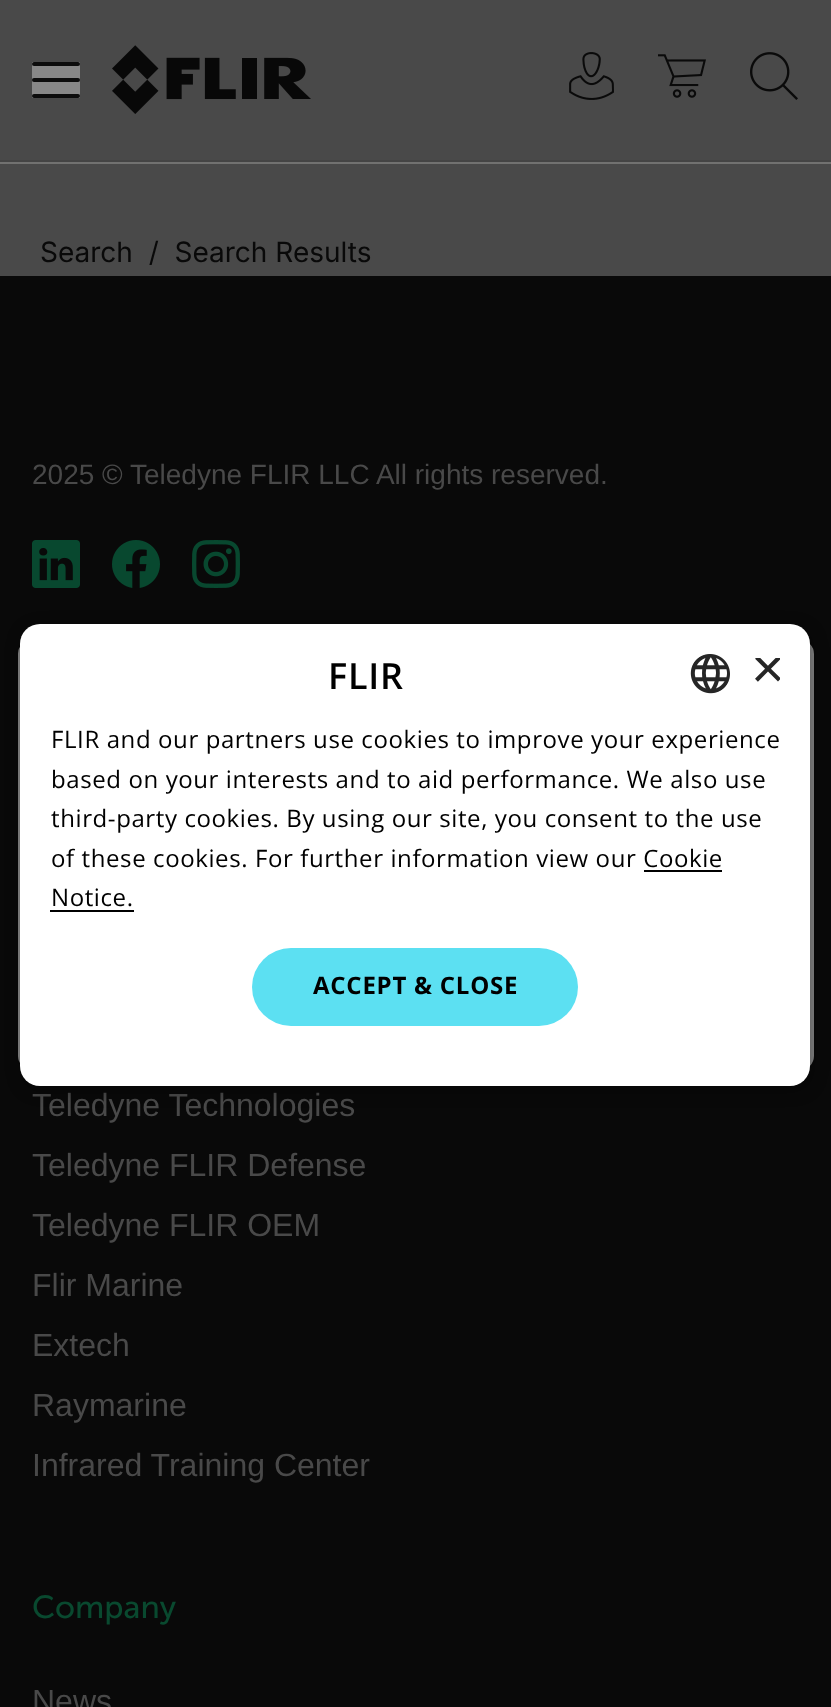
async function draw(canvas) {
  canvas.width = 831
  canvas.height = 1707
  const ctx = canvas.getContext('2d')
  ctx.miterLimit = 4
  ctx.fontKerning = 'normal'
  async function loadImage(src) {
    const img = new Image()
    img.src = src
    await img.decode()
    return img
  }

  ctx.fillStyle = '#494949'
  ctx.fillRect(0, 0, 831, 1707)
  ctx.fillStyle = '#444'
  ctx.fillRect(0, 160, 831, 2)
  ctx.fillStyle = '#888'
  ctx.fillRect(32, 62, 48, 36)
  ctx.fillStyle = '#0d0d0d'
  ctx.beginPath()
  ctx.roundRect(32, 62, 48, 4, 2)
  ctx.fill()
  ctx.beginPath()
  ctx.roundRect(32, 78, 48, 4, 2)
  ctx.fill()
  ctx.beginPath()
  ctx.roundRect(32, 94, 48, 4, 2)
  ctx.fill()
  ctx.drawImage(await loadImage('image0.png'), 112, 45, 199, 69)
  ctx.drawImage(await loadImage('image1.png'), 569, 52, 45, 48)
  ctx.drawImage(await loadImage('image2.png'), 658, 54, 48, 44)
  ctx.drawImage(await loadImage('image3.png'), 750, 52, 48, 48)
  ctx.fillStyle = '#717170'
  ctx.fillRect(0, 162, 831, 2)
  ctx.font = '28px Inter'
  ctx.fillStyle = '#090909'
  ctx.fillText('Search  /  Search Results', 40, 262)
  ctx.fillRect(0, 276, 831, 1431)
  ctx.font = '28px Liberation Sans'
  ctx.fillStyle = '#494949'
  ctx.fillText('2025 © Teledyne FLIR LLC All rights reserved.', 32, 484)
  ctx.drawImage(await loadImage('image4.png'), 32, 540, 48, 48)
  ctx.drawImage(await loadImage('image5.png'), 112, 540, 48, 48)
  ctx.drawImage(await loadImage('image6.png'), 192, 540, 48, 48)
  ctx.font = '32px Liberation Sans'
  ctx.fillText('Teledyne Technologies', 32, 1116)
  ctx.fillText('Teledyne FLIR Defense', 32, 1176)
  ctx.fillText('Teledyne FLIR OEM', 32, 1236)
  ctx.fillText('Flir Marine', 32, 1296)
  ctx.fillText('Extech', 32, 1356)
  ctx.fillText('Raymarine', 32, 1416)
  ctx.fillText('Infrared Training Center', 32, 1476)
  ctx.font = '32px Museo Sans'
  ctx.fillStyle = '#09492f'
  ctx.fillText('Company', 32, 1618)
  ctx.font = '32px Liberation Sans'
  ctx.fillStyle = '#494949'
  ctx.fillText('News', 32, 1712)
  ctx.fillStyle = '#888'
  ctx.beginPath()
  ctx.roundRect(18, 640, 796, 430, 14)
  ctx.fill()
  ctx.beginPath()
  ctx.roundRect(17, 639, 798, 432, 15)
  ctx.strokeStyle = '#0909092e'
  ctx.lineWidth = 2
  ctx.stroke()
  ctx.fillStyle = '#00000059'
  ctx.filter = 'blur(8px)'
  ctx.beginPath()
  ctx.roundRect(22, 628, 790, 462, 20)
  ctx.fill()
  ctx.filter = 'none'
  ctx.fillStyle = '#fff'
  ctx.beginPath()
  ctx.roundRect(20, 624, 790, 462, 20)
  ctx.fill()
  ctx.letterSpacing = '0.75px'
  ctx.font = '600 36px Open Sans'
  ctx.fillStyle = '#000'
  ctx.fillText('FLIR', 328, 689)
  ctx.drawImage(await loadImage('image7.png'), 690, 654, 40, 40)
  ctx.save()
  ctx.beginPath()
  ctx.rect(750, 658, 30, 30)
  ctx.clip()
  ctx.letterSpacing = '0px'
  ctx.font = '58px Liberation Sans'
  ctx.fillStyle = '#262626'
  ctx.fillText('×', 751, 688)
  ctx.restore()
  ctx.letterSpacing = '0.6px'
  ctx.font = '24px Open Sans'
  ctx.fillText('FLIR and our partners use cookies to improve your experience', 51, 748)
  ctx.fillText('based on your interests and to aid performance. We also use', 51, 788)
  ctx.fillText('third-party cookies. By using our site, you consent to the use', 51, 827)
  ctx.fillText('of these cookies. For further information view our Cookie', 51, 867)
  ctx.fillText('Notice.', 51, 906)
  ctx.fillRect(644, 870, 78, 2)
  ctx.fillRect(50, 910, 84, 2)
  ctx.fillStyle = '#5ce0f2'
  ctx.beginPath()
  ctx.roundRect(252, 948, 326, 78, 39)
  ctx.fill()
  ctx.letterSpacing = '0.75px'
  ctx.font = 'bold 24px Open Sans'
  ctx.fillStyle = '#000'
  ctx.fillText('ACCEPT & CLOSE', 313, 994)
}

draw(document.querySelector('canvas'))
